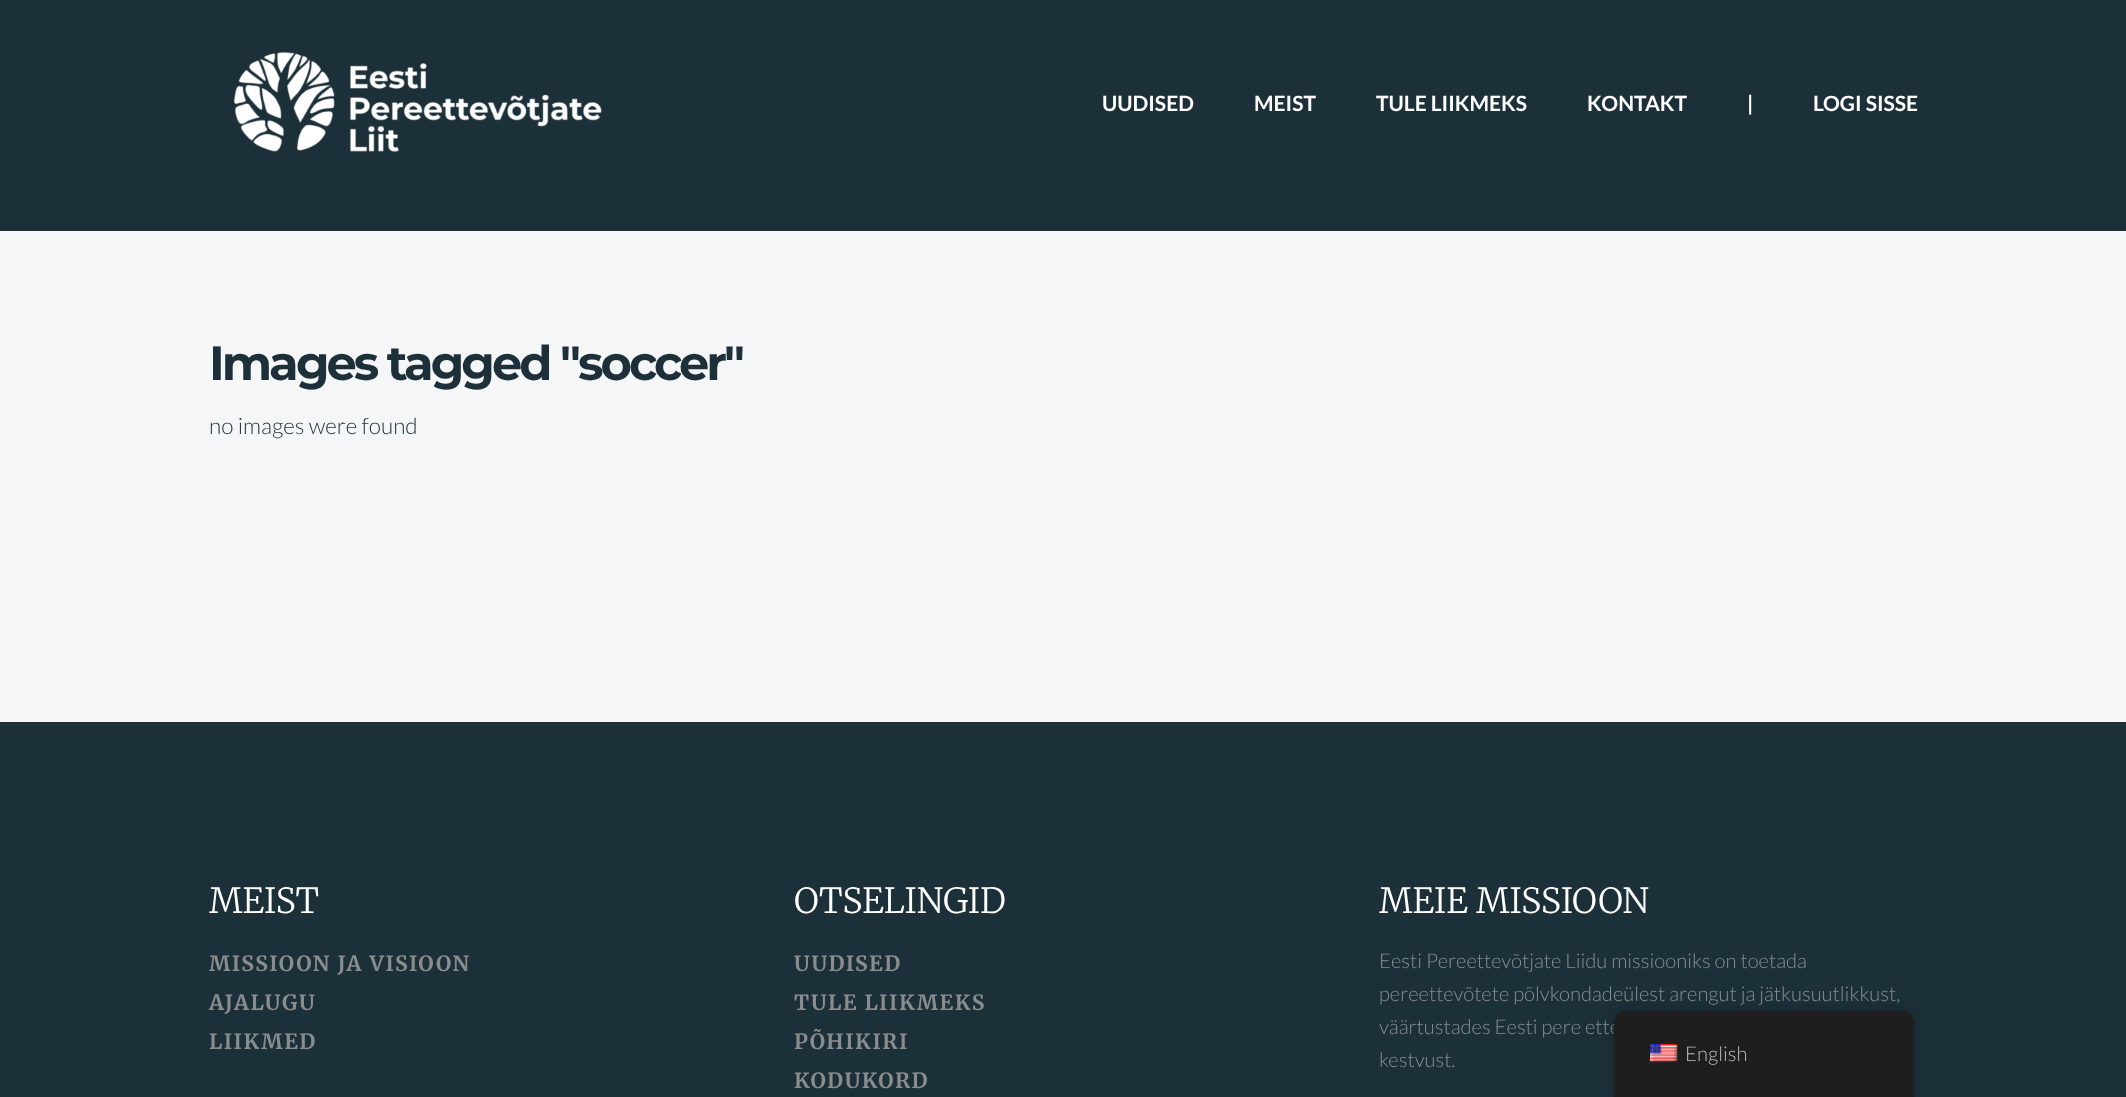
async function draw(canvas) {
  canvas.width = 2126
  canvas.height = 1097
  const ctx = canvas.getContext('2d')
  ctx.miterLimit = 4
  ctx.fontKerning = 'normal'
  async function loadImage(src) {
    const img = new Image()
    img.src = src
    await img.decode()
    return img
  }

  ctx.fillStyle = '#f5f6f7'
  ctx.fillRect(0, 0, 2126, 1097)
  ctx.fillStyle = '#1c3039'
  ctx.fillRect(0, 0, 2126, 231)
  ctx.drawImage(await loadImage('image0.png'), 233, 52, 369, 100)
  ctx.font = 'bold 21px Lato'
  ctx.fillStyle = '#fff'
  ctx.fillText('UUDISED', 1102, 111)
  ctx.fillText('MEIST', 1254, 111)
  ctx.fillText('TULE LIIKMEKS', 1376, 111)
  ctx.fillText('KONTAKT', 1587, 111)
  ctx.fillText('|', 1747, 111)
  ctx.fillText('LOGI SISSE', 1813, 111)
  ctx.letterSpacing = '-3px'
  ctx.font = 'bold 48px Montserrat'
  ctx.fillStyle = '#1d3039'
  ctx.fillText('Images tagged "soccer"', 209, 380)
  ctx.letterSpacing = '0px'
  ctx.font = '300 22.5px Lato'
  ctx.fillText('no images were found', 209, 434)
  ctx.fillStyle = '#1c3039'
  ctx.fillRect(0, 722, 2126, 375)
  ctx.font = '300 34.5px Merriweather'
  ctx.fillStyle = '#fff'
  ctx.fillText('MEIST', 209, 913)
  ctx.letterSpacing = '1.5px'
  ctx.font = 'bold 21px Merriweather'
  ctx.fillStyle = '#898d8e'
  ctx.fillText('MISSIOON JA VISIOON', 209, 971)
  ctx.fillText('AJALUGU', 209, 1010)
  ctx.fillText('LIIKMED', 209, 1049)
  ctx.letterSpacing = '0px'
  ctx.font = '300 34.5px Merriweather'
  ctx.fillStyle = '#fff'
  ctx.fillText('OTSELINGID', 794, 913)
  ctx.letterSpacing = '1.5px'
  ctx.font = 'bold 21px Merriweather'
  ctx.fillStyle = '#898d8e'
  ctx.fillText('UUDISED', 794, 971)
  ctx.fillText('TULE LIIKMEKS', 794, 1010)
  ctx.fillText('PÕHIKIRI', 794, 1049)
  ctx.fillText('KODUKORD', 794, 1088)
  ctx.letterSpacing = '0px'
  ctx.font = '300 34.5px Merriweather'
  ctx.fillStyle = '#fff'
  ctx.fillText('MEIE MISSIOON', 1379, 913)
  ctx.font = '300 20.25px Lato'
  ctx.fillStyle = '#898d8e'
  ctx.fillText('Eesti Pereettevõtjate Liidu missiooniks on toetada', 1379, 968)
  ctx.fillText('pereettevõtete põlvkondadeülest arengut ja jätkusuutlikkust,', 1379, 1001)
  ctx.fillText('väärtustades Eesti pere ette', 1379, 1034)
  ctx.fillText('kestvust.', 1379, 1067)
  ctx.fillStyle = '#00000040'
  ctx.filter = 'blur(6px)'
  ctx.beginPath()
  ctx.roundRect(1614, 1011, 300, 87, 12)
  ctx.fill()
  ctx.filter = 'none'
  ctx.fillStyle = '#1e1e1e'
  ctx.beginPath()
  ctx.moveTo(1626, 1011)
  ctx.lineTo(1902, 1011)
  ctx.bezierCurveTo(1908.5, 1011, 1914, 1016.5, 1914, 1023)
  ctx.lineTo(1914, 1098)
  ctx.lineTo(1614, 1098)
  ctx.lineTo(1614, 1023)
  ctx.bezierCurveTo(1614, 1016.5, 1619.5, 1011, 1626, 1011)
  ctx.closePath()
  ctx.fill()
  ctx.drawImage(await loadImage('image1.png'), 1650, 1044, 28, 18)
  ctx.fillStyle = '#bdbdbd'
  ctx.fillText('English', 1685, 1061)
}

draw(document.querySelector('canvas'))
